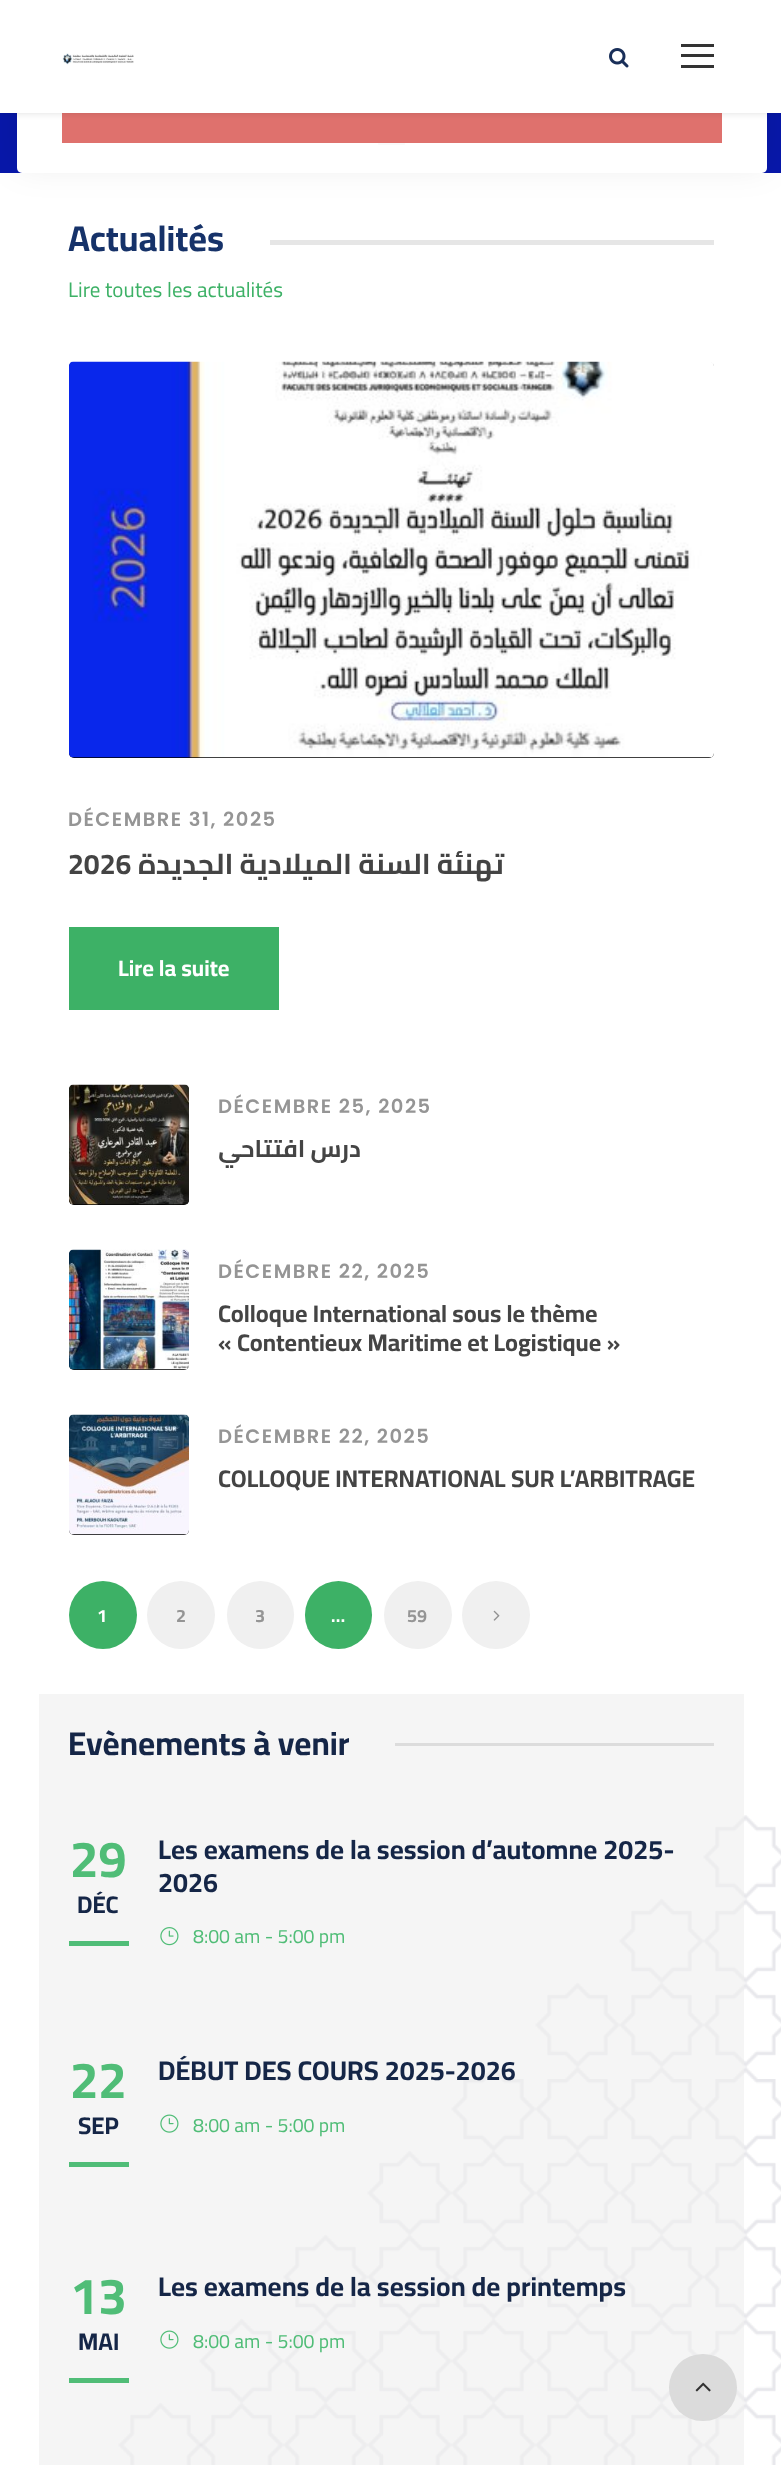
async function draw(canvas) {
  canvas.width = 781
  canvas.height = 2465
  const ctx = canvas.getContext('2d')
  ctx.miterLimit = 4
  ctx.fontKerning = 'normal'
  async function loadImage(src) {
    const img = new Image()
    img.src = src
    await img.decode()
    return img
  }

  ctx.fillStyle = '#fff'
  ctx.fillRect(0, 0, 781, 2465)
  ctx.fillStyle = '#f5f5f5'
  ctx.fillRect(39, 1694, 705, 771)
  ctx.fillStyle = '#0818aa'
  ctx.fillRect(0, 113, 781, 60)
  ctx.fillStyle = '#0a0a0a17'
  ctx.filter = 'blur(18px)'
  ctx.beginPath()
  ctx.roundRect(17, -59, 750, 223, 5)
  ctx.fill()
  ctx.filter = 'none'
  ctx.fillStyle = '#fff'
  ctx.beginPath()
  ctx.roundRect(17, -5, 750, 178, 5)
  ctx.fill()
  ctx.fillStyle = '#df716d'
  ctx.fillRect(62, 113, 660, 30)
  ctx.fillStyle = '#0000001a'
  ctx.filter = 'blur(3px)'
  ctx.beginPath()
  ctx.rect(0, 2, 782, 112)
  ctx.fill()
  ctx.filter = 'none'
  ctx.fillStyle = '#fff'
  ctx.fillRect(0, 0, 781, 113)
  ctx.drawImage(await loadImage('image0.png'), 62, 53, 72, 12)
  ctx.drawImage(await loadImage('image1.png'), 609, 48, 20, 20)
  ctx.fillStyle = '#333'
  ctx.fillRect(681, 44, 33, 3)
  ctx.fillRect(681, 54, 33, 3)
  ctx.fillRect(681, 65, 33, 3)
  ctx.drawImage(await loadImage('image2.png'), 378, 143, 27, 2)
  ctx.font = 'bold 36px Cairo'
  ctx.fillStyle = '#163269'
  ctx.fillText('Actualités', 68, 251)
  ctx.fillStyle = '#e6e6e6'
  ctx.fillRect(270, 240, 444, 5)
  ctx.font = '21px Cairo'
  ctx.fillStyle = '#3db166'
  ctx.fillText('Lire toutes les actualités', 68, 297)
  ctx.fillStyle = '#000'
  ctx.beginPath()
  ctx.roundRect(69, 362, 645, 396, 5)
  ctx.fill()
  ctx.drawImage(await loadImage('image3.png'), 69, 361, 645, 397)
  ctx.letterSpacing = '1.5px'
  ctx.font = '600 19.5px Poppins'
  ctx.fillStyle = '#959595'
  ctx.fillText('DÉCEMBRE 31, 2025', 68, 826)
  ctx.letterSpacing = '0px'
  ctx.font = 'bold 28.5px Cairo'
  ctx.fillStyle = '#444'
  ctx.fillText('2026', 68, 874)
  ctx.direction = 'rtl'
  ctx.fillText('تهنئة السنة الميلادية الجديدة', 504, 874)
  ctx.fillStyle = '#3db166'
  ctx.fillRect(69, 927, 210, 83)
  ctx.direction = 'ltr'
  ctx.font = 'bold 22.5px Cairo'
  ctx.fillStyle = '#fff'
  ctx.fillText('Lire la suite', 118, 976)
  ctx.fillStyle = '#000'
  ctx.beginPath()
  ctx.roundRect(69, 1085, 120, 120, 5)
  ctx.fill()
  ctx.drawImage(await loadImage('image4.png'), 69, 1084, 120, 121)
  ctx.letterSpacing = '1.5px'
  ctx.font = '600 19.5px Poppins'
  ctx.fillStyle = '#959595'
  ctx.fillText('DÉCEMBRE 25, 2025', 218, 1113)
  ctx.letterSpacing = '0px'
  ctx.direction = 'rtl'
  ctx.font = 'bold 24px Cairo'
  ctx.fillStyle = '#444'
  ctx.fillText('درس افتتاحي', 361, 1157)
  ctx.fillStyle = '#000'
  ctx.beginPath()
  ctx.roundRect(69, 1250, 120, 120, 5)
  ctx.fill()
  ctx.drawImage(await loadImage('image5.png'), 69, 1249, 120, 121)
  ctx.letterSpacing = '1.5px'
  ctx.direction = 'ltr'
  ctx.font = '600 19.5px Poppins'
  ctx.fillStyle = '#959595'
  ctx.fillText('DÉCEMBRE 22, 2025', 218, 1278)
  ctx.letterSpacing = '0px'
  ctx.font = 'bold 24px Cairo'
  ctx.fillStyle = '#444'
  ctx.fillText('Colloque International sous le thème', 218, 1322)
  ctx.fillText('« Contentieux Maritime et Logistique »', 218, 1351)
  ctx.fillStyle = '#000'
  ctx.beginPath()
  ctx.roundRect(69, 1415, 120, 120, 5)
  ctx.fill()
  ctx.drawImage(await loadImage('image6.png'), 69, 1414, 120, 121)
  ctx.letterSpacing = '1.5px'
  ctx.font = '600 19.5px Poppins'
  ctx.fillStyle = '#959595'
  ctx.fillText('DÉCEMBRE 22, 2025', 218, 1443)
  ctx.letterSpacing = '0px'
  ctx.font = 'bold 24px Cairo'
  ctx.fillStyle = '#444'
  ctx.fillText('COLLOQUE INTERNATIONAL SUR L’ARBITRAGE', 218, 1487)
  ctx.fillStyle = '#3db166'
  ctx.beginPath()
  ctx.arc(103, 1615, 34, 0, 2 * Math.PI)
  ctx.fill()
  ctx.font = 'bold 18px Cairo'
  ctx.fillStyle = '#fff'
  ctx.fillText('1', 97, 1622)
  ctx.fillStyle = '#f0f0f0'
  ctx.beginPath()
  ctx.arc(181, 1615, 34, 0, 2 * Math.PI)
  ctx.fill()
  ctx.fillStyle = '#959595'
  ctx.fillText('2', 176, 1622)
  ctx.fillStyle = '#f0f0f0'
  ctx.beginPath()
  ctx.roundRect(227, 1581, 67, 68, 33.5)
  ctx.fill()
  ctx.fillStyle = '#959595'
  ctx.fillText('3', 255, 1622)
  ctx.fillStyle = '#3db166'
  ctx.beginPath()
  ctx.roundRect(305, 1581, 67, 68, 33.5)
  ctx.fill()
  ctx.fillStyle = '#fff'
  ctx.fillText('…', 331, 1622)
  ctx.fillStyle = '#f0f0f0'
  ctx.beginPath()
  ctx.arc(418, 1615, 34, 0, 2 * Math.PI)
  ctx.fill()
  ctx.fillStyle = '#959595'
  ctx.fillText('59', 407, 1622)
  ctx.fillStyle = '#f0f0f0'
  ctx.beginPath()
  ctx.arc(496, 1615, 34, 0, 2 * Math.PI)
  ctx.fill()
  ctx.drawImage(await loadImage('image7.png'), 493, 1610, 7, 11)
  ctx.font = 'bold 33px Cairo'
  ctx.fillStyle = '#152647'
  ctx.fillText('Evènements à venir', 68, 1755)
  ctx.fillStyle = '#dcdcdc'
  ctx.fillRect(395, 1743, 319, 3)
  ctx.drawImage(await loadImage('image10.png'), 118, 1815, 663, 650)
  ctx.fillStyle = '#50bd77'
  ctx.fillRect(69, 1941, 60, 5)
  ctx.font = 'bold 51px Cairo'
  ctx.fillText('29', 70, 1877)
  ctx.font = 'bold 24px Cairo'
  ctx.fillStyle = '#152647'
  ctx.fillText('DÉC', 77, 1913)
  ctx.font = 'bold 27px Cairo'
  ctx.fillText('Les examens de la session d’automne 2025-', 158, 1859)
  ctx.fillText('2026', 158, 1892)
  ctx.drawImage(await loadImage('image8.png'), 160, 1927, 19, 19)
  ctx.font = '19.5px Cairo'
  ctx.fillStyle = '#50bd77'
  ctx.fillText('8:00 am - 5:00 pm', 193, 1943)
  ctx.fillRect(69, 2162, 60, 5)
  ctx.font = 'bold 51px Cairo'
  ctx.fillText('22', 70, 2098)
  ctx.font = 'bold 24px Cairo'
  ctx.fillStyle = '#152647'
  ctx.fillText('SEP', 78, 2134)
  ctx.font = 'bold 27px Cairo'
  ctx.fillText('DÉBUT DES COURS 2025-2026', 158, 2080)
  ctx.drawImage(await loadImage('image9.png'), 160, 2114, 19, 19)
  ctx.font = '19.5px Cairo'
  ctx.fillStyle = '#50bd77'
  ctx.fillText('8:00 am - 5:00 pm', 193, 2132)
  ctx.fillRect(69, 2378, 60, 5)
  ctx.font = 'bold 51px Cairo'
  ctx.fillText('13', 70, 2314)
  ctx.font = 'bold 24px Cairo'
  ctx.fillStyle = '#152647'
  ctx.fillText('MAI', 78, 2350)
  ctx.font = 'bold 27px Cairo'
  ctx.fillText('Les examens de la session de printemps', 158, 2296)
  ctx.drawImage(await loadImage('image9.png'), 160, 2330, 19, 19)
  ctx.font = '19.5px Cairo'
  ctx.fillStyle = '#50bd77'
  ctx.fillText('8:00 am - 5:00 pm', 193, 2348)
  ctx.fillStyle = '#dbdbdb'
  ctx.beginPath()
  ctx.roundRect(669, 2354, 68, 67, 33.5)
  ctx.fill()
  ctx.drawImage(await loadImage('image11.png'), 695, 2382, 16, 10)
}

draw(document.querySelector('canvas'))
